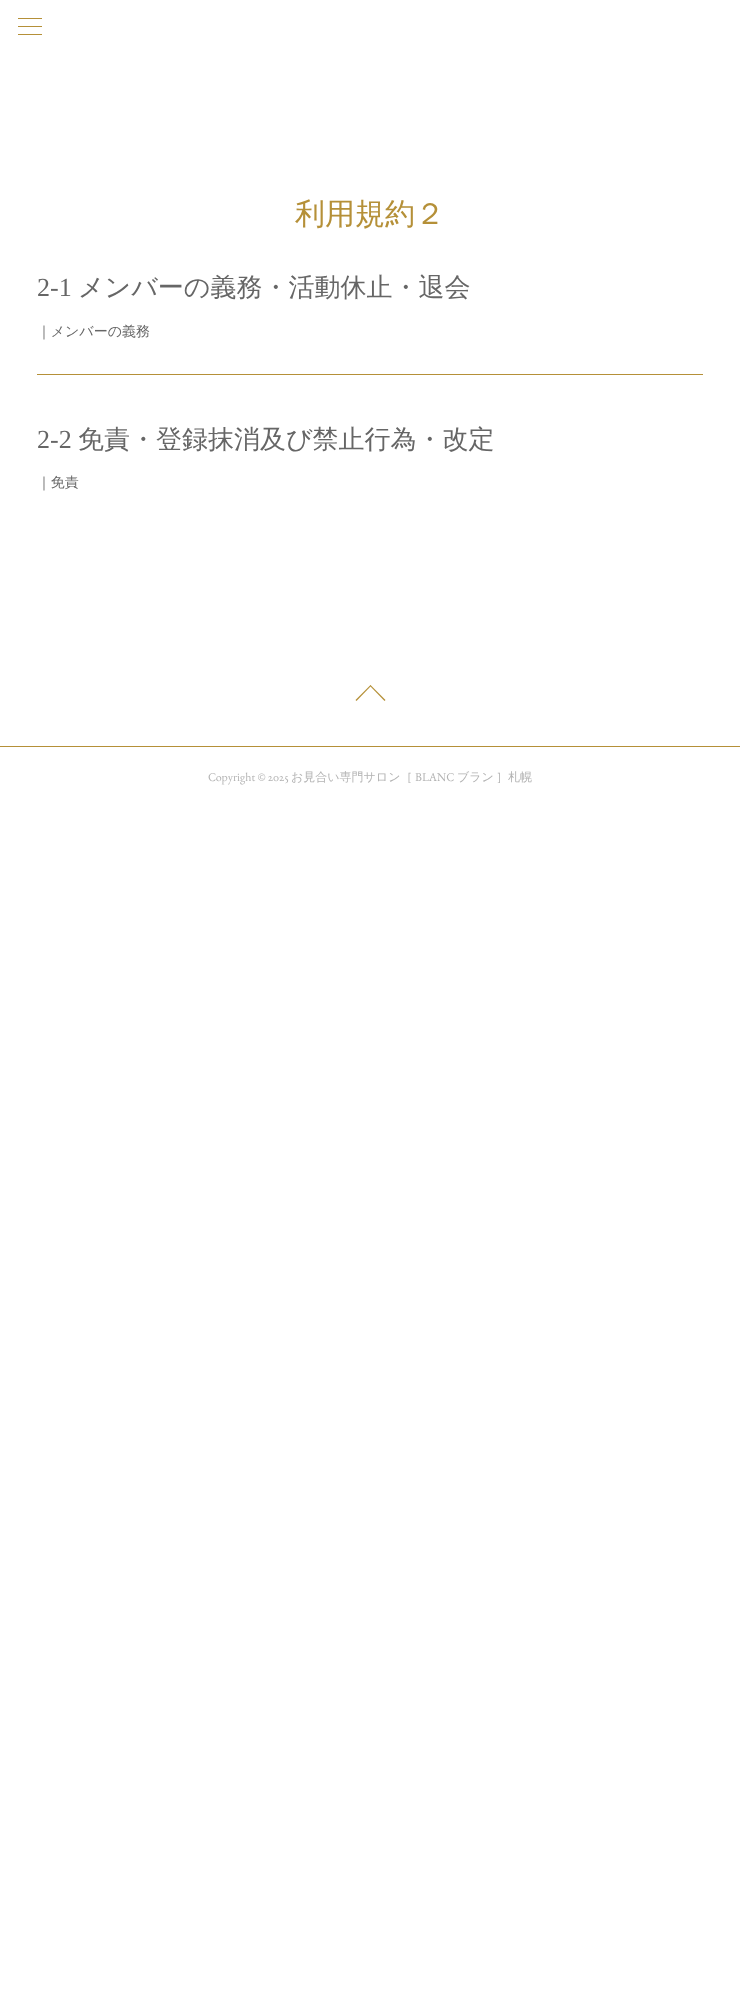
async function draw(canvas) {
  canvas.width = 740
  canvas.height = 1990
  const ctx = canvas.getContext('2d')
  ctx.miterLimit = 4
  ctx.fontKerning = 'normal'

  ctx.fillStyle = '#fff'
  ctx.fillRect(0, 0, 740, 1990)
  ctx.fillStyle = '#b59038'
  ctx.fillRect(18, 18, 24, 1)
  ctx.fillRect(18, 26, 24, 1)
  ctx.fillRect(18, 34, 24, 1)
  ctx.font = '500 30px WenQuanYi Zen Hei'
  ctx.fillText('利用規約２', 295, 224)
  ctx.font = '26px Liberation Serif'
  ctx.fillStyle = '#666'
  ctx.fillText('2-1', 37, 296)
  ctx.font = '500 26px WenQuanYi Zen Hei'
  ctx.fillText('メンバーの義務・活動休止・退会', 78, 296)
  ctx.font = '500 14px WenQuanYi Zen Hei'
  ctx.fillText('｜メンバーの義務', 37, 336)
  ctx.fillStyle = '#b59038'
  ctx.fillRect(37, 374, 666, 1)
  ctx.font = '26px Liberation Serif'
  ctx.fillStyle = '#666'
  ctx.fillText('2-2', 37, 448)
  ctx.font = '500 26px WenQuanYi Zen Hei'
  ctx.fillText('免責・登録抹消及び禁止行為・改定', 78, 448)
  ctx.font = '500 14px WenQuanYi Zen Hei'
  ctx.fillText('｜免責', 37, 487)
  ctx.fillStyle = '#b59038'
  ctx.beginPath()
  ctx.moveTo(355.5, 700)
  ctx.lineTo(370.5, 685)
  ctx.lineTo(371, 686)
  ctx.lineTo(356.5, 701)
  ctx.closePath()
  ctx.fill()
  ctx.beginPath()
  ctx.moveTo(370, 686)
  ctx.lineTo(370.5, 685)
  ctx.lineTo(385.5, 700)
  ctx.lineTo(384.5, 701)
  ctx.closePath()
  ctx.fill()
  ctx.fillRect(0, 746, 740, 1)
  ctx.font = '12px EB Garamond'
  ctx.fillStyle = '#b3b3b3'
  ctx.fillText('Copyright © 2025', 208, 781)
  ctx.font = '500 12px WenQuanYi Zen Hei'
  ctx.fillText('お見合い専門サロン［', 291, 781)
  ctx.font = '12px EB Garamond'
  ctx.fillText('BLANC', 415, 781)
  ctx.font = '500 12px WenQuanYi Zen Hei'
  ctx.fillText('ブラン', 457, 781)
  ctx.fillText('］札幌', 496, 781)
}

draw(document.querySelector('canvas'))
